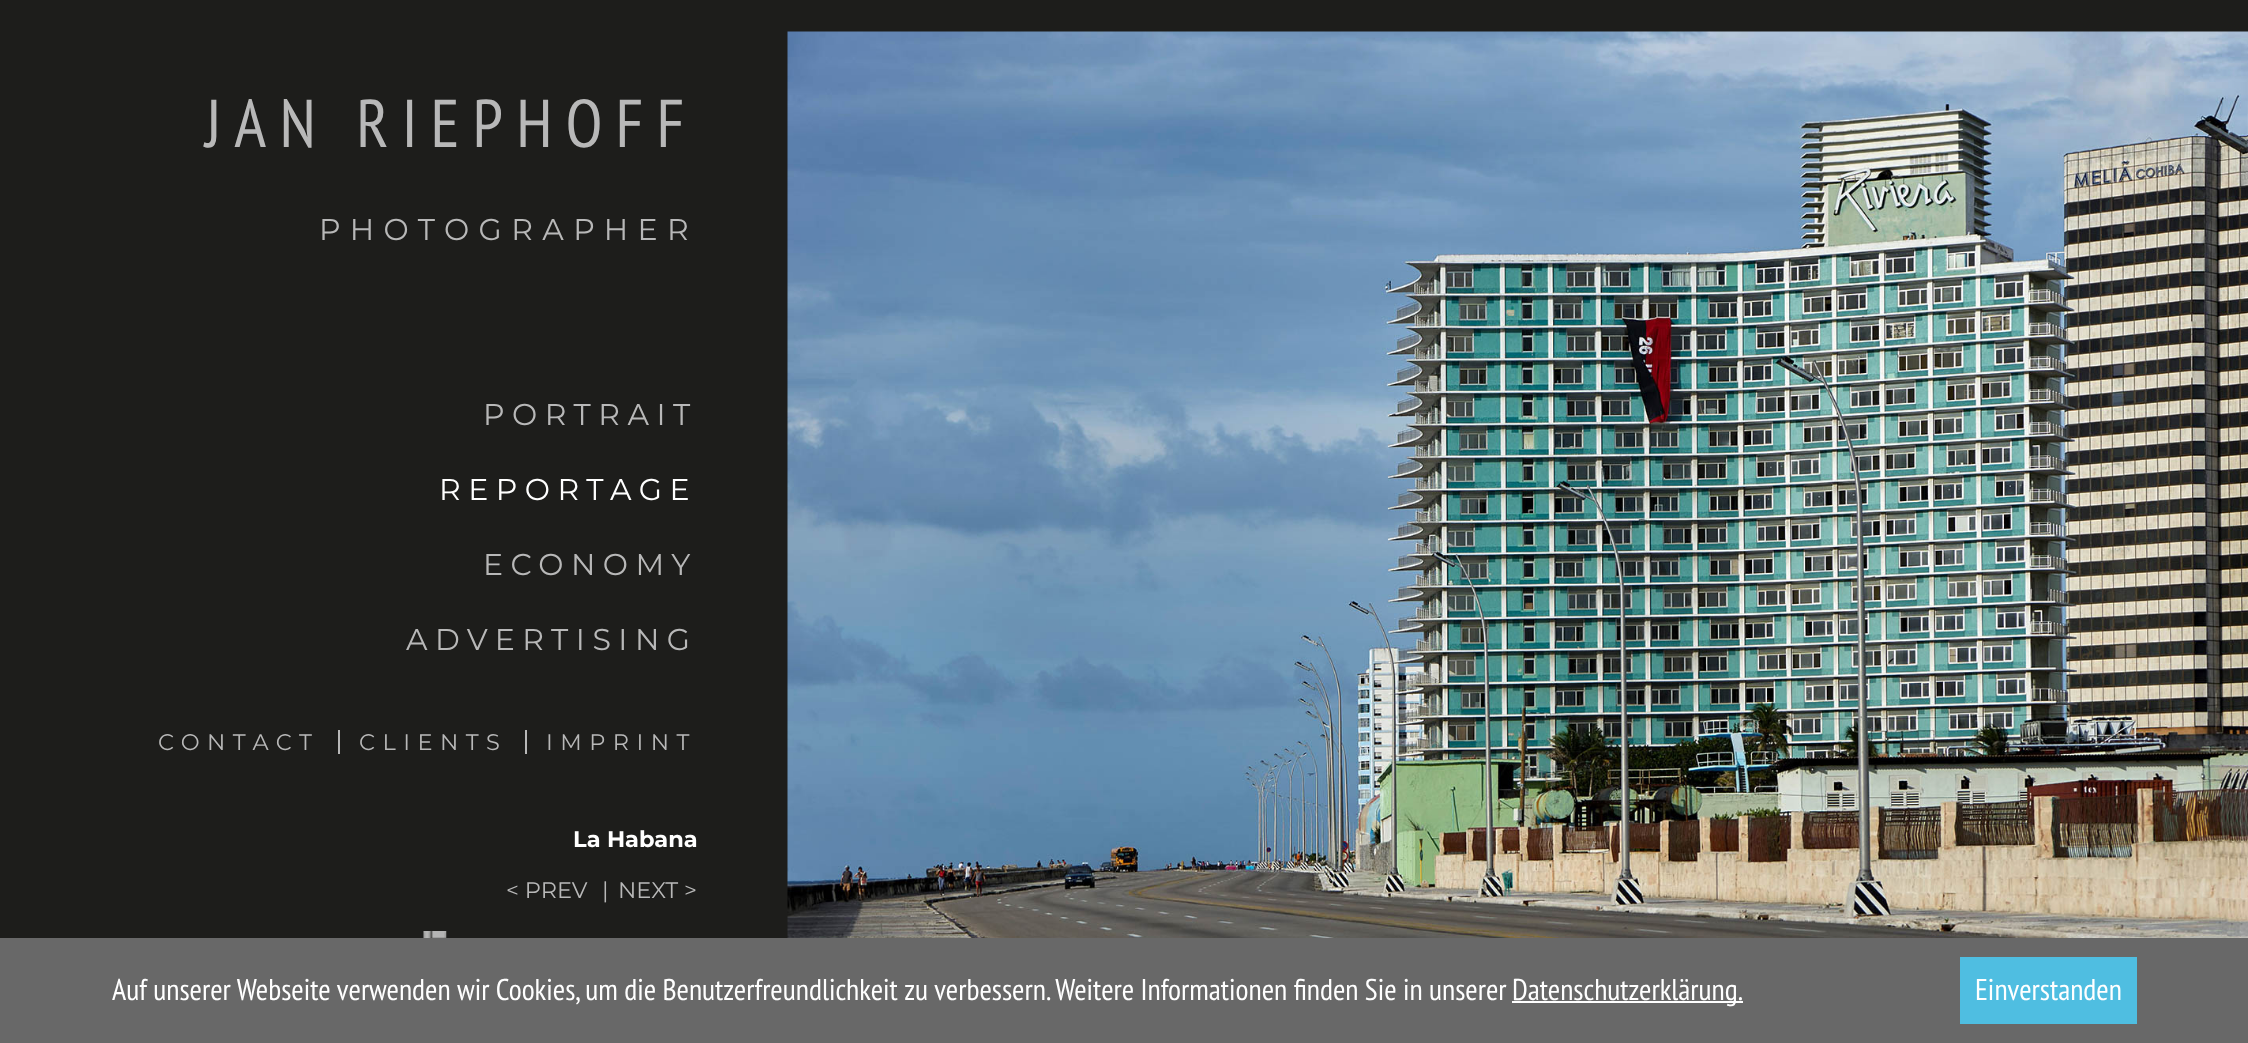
async function draw(canvas) {
  canvas.width = 2248
  canvas.height = 1043
  const ctx = canvas.getContext('2d')
  ctx.miterLimit = 4
  ctx.fontKerning = 'normal'
  async function loadImage(src) {
    const img = new Image()
    img.src = src
    await img.decode()
    return img
  }

  ctx.fillStyle = '#1d1d1b'
  ctx.fillRect(0, 0, 2248, 1043)
  ctx.letterSpacing = '13.1px'
  ctx.font = '67.5px PT Sans Narrow'
  ctx.fillStyle = '#b8b8b8'
  ctx.fillText('JAN RIEPHOFF', 205, 147)
  ctx.letterSpacing = '9.4px'
  ctx.font = '30px Montserrat'
  ctx.fillText('PHOTOGRAPHER', 319, 240)
  ctx.letterSpacing = '7.5px'
  ctx.fillText('PORTRAIT', 483, 425)
  ctx.fillStyle = '#fff'
  ctx.fillText('REPORTAGE', 439, 500)
  ctx.fillStyle = '#b8b8b8'
  ctx.fillText('ECONOMY', 483, 575)
  ctx.fillText('ADVERTISING', 406, 650)
  ctx.fillRect(338, 730, 2, 24)
  ctx.font = '22.5px Montserrat'
  ctx.fillText('CONTACT', 158, 750)
  ctx.fillRect(525, 730, 2, 24)
  ctx.fillText('CLIENTS', 359, 750)
  ctx.fillText('IMPRINT', 546, 750)
  ctx.letterSpacing = '0px'
  ctx.font = 'bold 22.5px Montserrat'
  ctx.fillStyle = '#fff'
  ctx.fillText('La Habana', 573, 847)
  ctx.font = '22.5px Montserrat'
  ctx.fillStyle = '#b8b8b8'
  ctx.fillText('< PREV', 506, 898)
  ctx.fillText('|', 602, 898)
  ctx.fillText('NEXT >', 618, 898)
  ctx.drawImage(await loadImage('image0.png'), 423, 931, 24, 7)
  ctx.drawImage(await loadImage('image1.png'), 787, 31, 1461, 907)
  ctx.fillStyle = '#686868'
  ctx.fillRect(0, 938, 2248, 105)
  ctx.font = '30px PT Sans Narrow'
  ctx.fillStyle = '#fff'
  ctx.fillText('Auf unserer Webseite verwenden wir Cookies, um die Benutzerfreundlichkeit zu verbessern. Weitere Informationen finden Sie in unserer', 112, 1000)
  ctx.fillRect(1512, 1001, 231, 2)
  ctx.fillText('Datenschutzerklärung.', 1512, 1000)
  ctx.fillStyle = '#4fbee1'
  ctx.fillRect(1960, 957, 177, 67)
  ctx.fillStyle = '#fff'
  ctx.fillText('Einverstanden', 1975, 1000)
}

draw(document.querySelector('canvas'))
